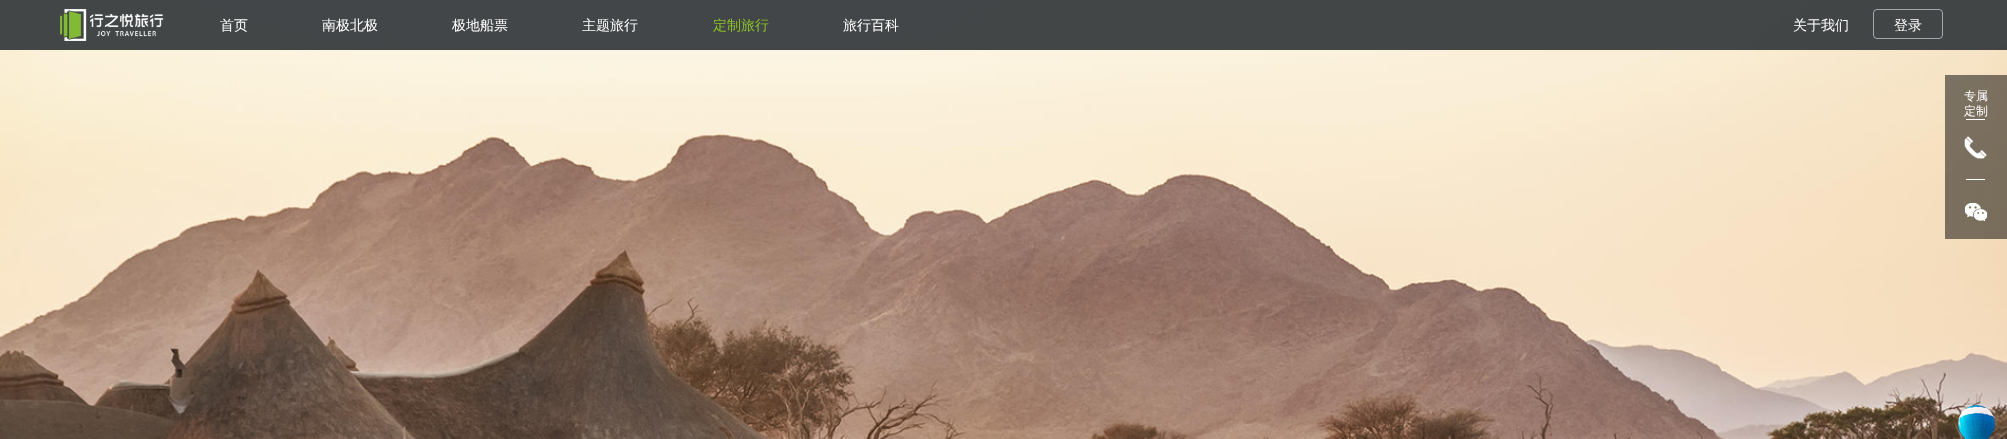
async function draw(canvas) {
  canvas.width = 2007
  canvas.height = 439
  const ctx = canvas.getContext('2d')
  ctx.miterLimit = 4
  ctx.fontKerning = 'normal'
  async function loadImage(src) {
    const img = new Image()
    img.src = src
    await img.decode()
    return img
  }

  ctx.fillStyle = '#fff'
  ctx.fillRect(0, 0, 2007, 439)
  ctx.drawImage(await loadImage('image0.png'), 0, 0, 2007, 439)
  ctx.fillStyle = '#2d3336e6'
  ctx.fillRect(0, 0, 2007, 50)
  ctx.drawImage(await loadImage('image1.png'), 60, 9, 104, 32)
  ctx.font = '500 14px WenQuanYi Zen Hei'
  ctx.fillStyle = '#fff'
  ctx.fillText('首页', 220, 30)
  ctx.fillText('南极北极', 322, 30)
  ctx.fillText('极地船票', 452, 30)
  ctx.fillText('主题旅行', 582, 30)
  ctx.fillStyle = '#8cc227'
  ctx.fillText('定制旅行', 713, 30)
  ctx.fillStyle = '#fff'
  ctx.fillText('旅行百科', 843, 30)
  ctx.fillText('关于我们', 1793, 30)
  ctx.beginPath()
  ctx.roundRect(1873.5, 9.5, 69, 29, 3.5)
  ctx.strokeStyle = '#a4a7ae'
  ctx.stroke()
  ctx.fillText('登录', 1894, 30)
  ctx.fillStyle = '#00000080'
  ctx.fillRect(1945, 75, 62, 164)
  ctx.font = '500 12px WenQuanYi Zen Hei'
  ctx.fillStyle = '#fff'
  ctx.fillText('专属', 1964, 100)
  ctx.fillText('定制', 1964, 115)
  ctx.drawImage(await loadImage('image2.png'), 1964, 119, 23, 40)
  ctx.drawImage(await loadImage('image3.png'), 1964, 179, 24, 42)
  ctx.drawImage(await loadImage('image4.png'), 1958, 405, 37, 34)
}

draw(document.querySelector('canvas'))
